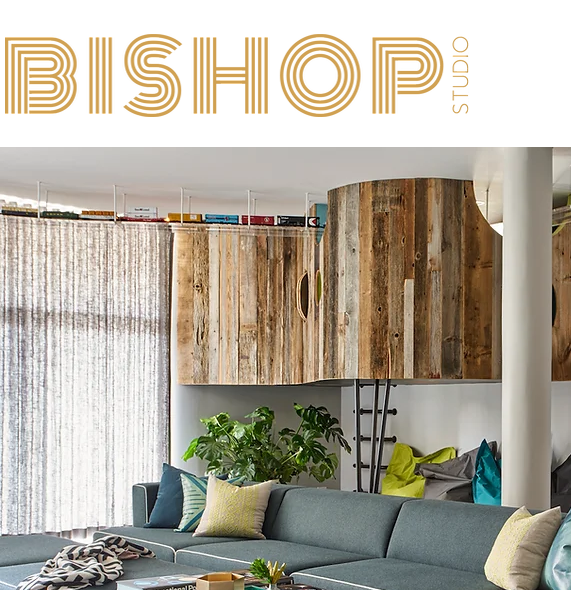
async function draw(canvas) {
  canvas.width = 571
  canvas.height = 590
  const ctx = canvas.getContext('2d')
  ctx.miterLimit = 4
  ctx.fontKerning = 'normal'
  async function loadImage(src) {
    const img = new Image()
    img.src = src
    await img.decode()
    return img
  }

  ctx.fillStyle = '#fff'
  ctx.fillRect(0, 0, 571, 590)
  ctx.drawImage(await loadImage('image0.png'), 5, 34, 464, 83)
  ctx.drawImage(await loadImage('image1.png'), 0, 147, 571, 443)
}

draw(document.querySelector('canvas'))
